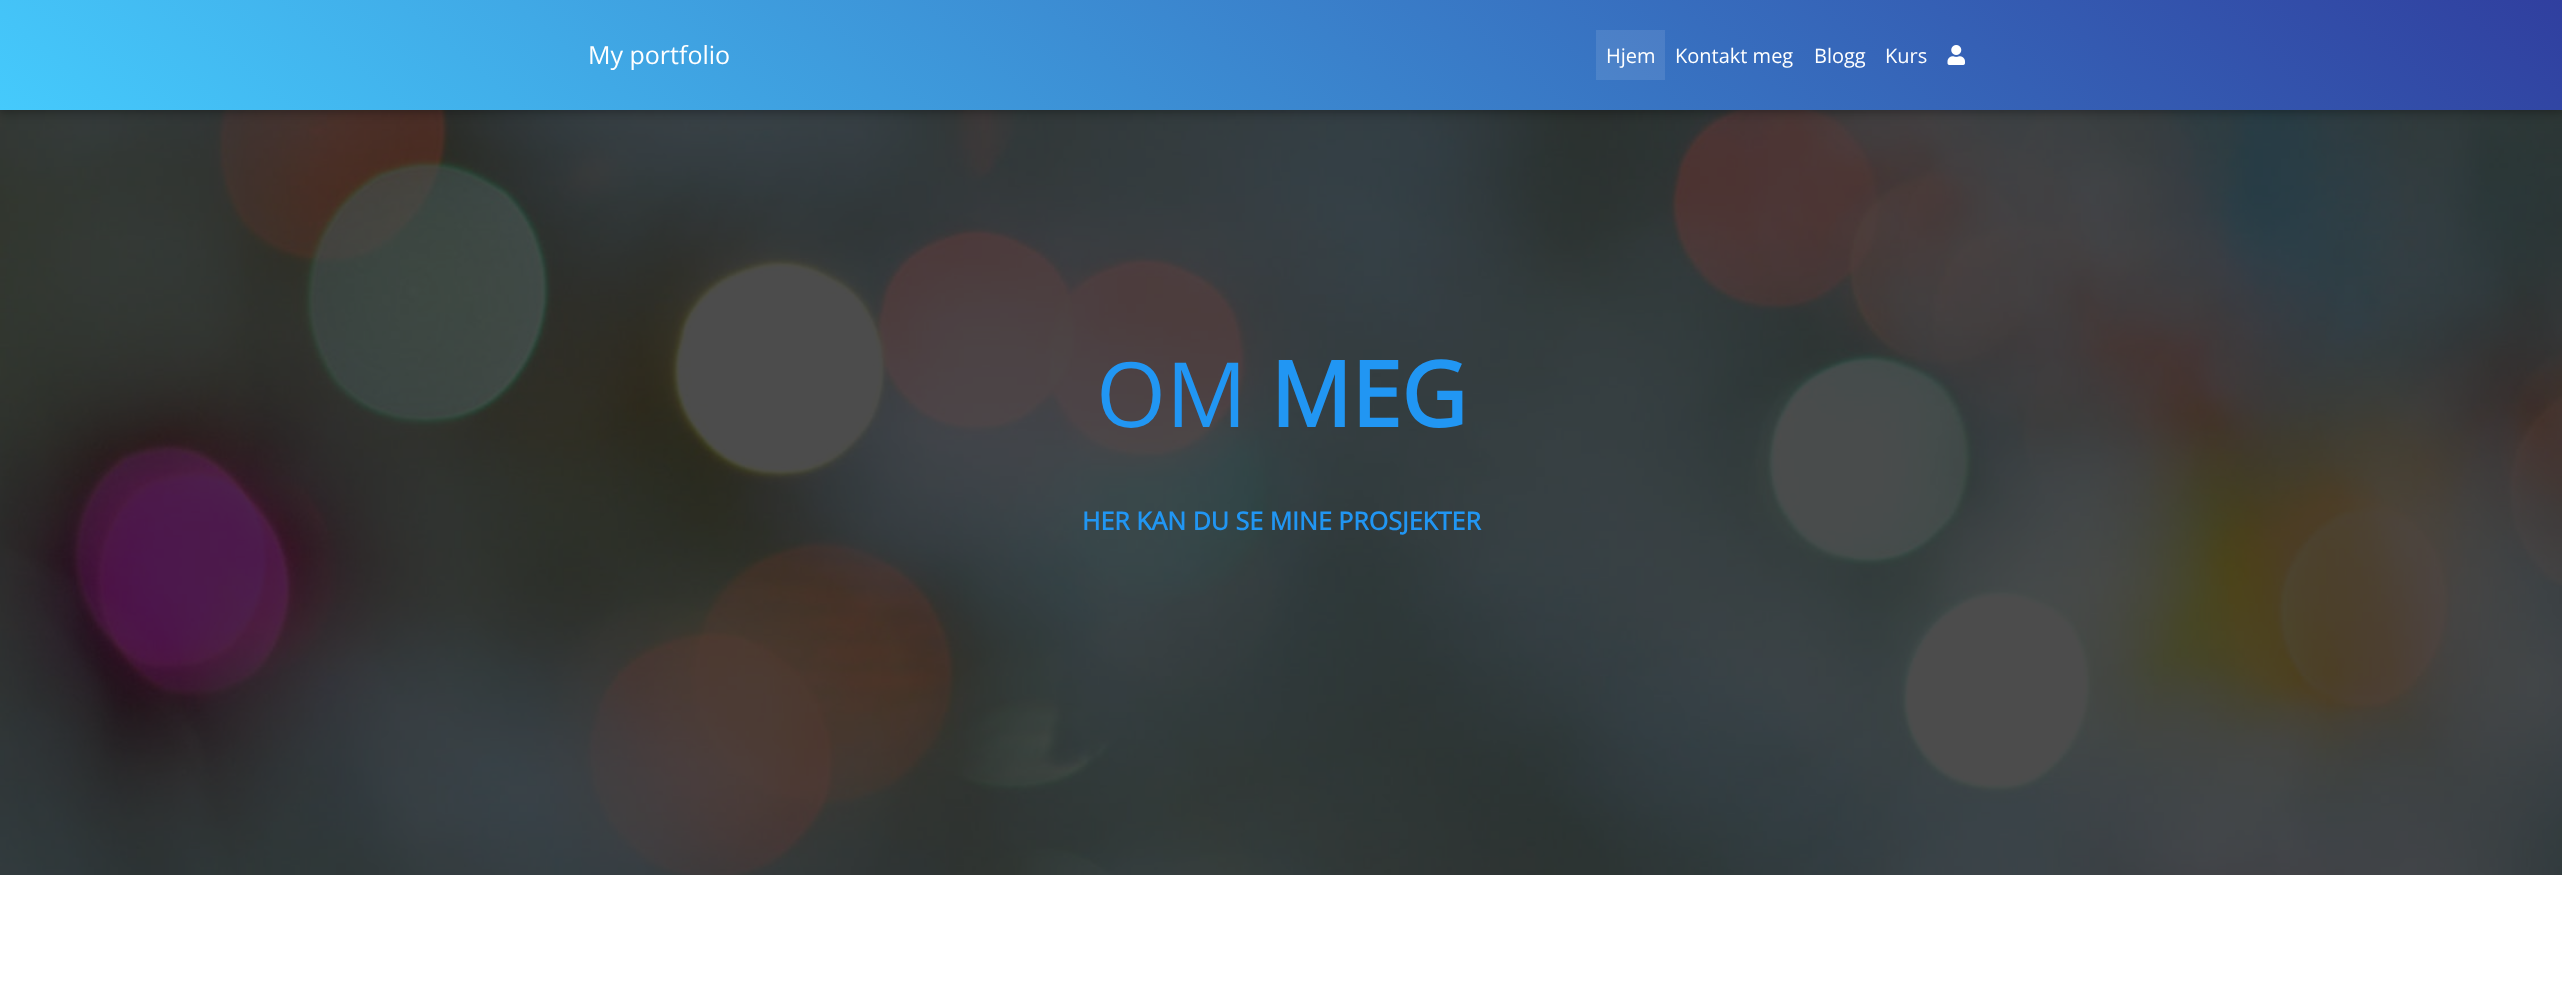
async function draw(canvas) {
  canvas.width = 2562
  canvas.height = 994
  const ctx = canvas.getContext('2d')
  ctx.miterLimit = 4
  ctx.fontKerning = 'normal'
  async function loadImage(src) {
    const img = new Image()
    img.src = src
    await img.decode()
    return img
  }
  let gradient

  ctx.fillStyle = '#fff'
  ctx.fillRect(0, 0, 2562, 994)
  ctx.drawImage(await loadImage('image1.png'), 0, 110, 2562, 765)
  ctx.fillStyle = '#0000001f'
  ctx.filter = 'blur(6px)'
  ctx.beginPath()
  ctx.rect(0, 3, 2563, 110)
  ctx.fill()
  ctx.filter = 'none'
  ctx.fillStyle = '#00000029'
  ctx.filter = 'blur(3px)'
  ctx.beginPath()
  ctx.rect(0, 3, 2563, 110)
  ctx.fill()
  ctx.filter = 'none'
  gradient = ctx.createLinearGradient(725, 718, 1838, -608)
  gradient.addColorStop(0, '#45cafc')
  gradient.addColorStop(1, '#303f9f')
  ctx.fillStyle = gradient
  ctx.fillRect(0, 0, 2562, 110)
  ctx.font = '25px Open Sans'
  ctx.fillStyle = '#fff'
  ctx.fillText('My portfolio', 588, 64)
  ctx.fillStyle = '#ffffff1a'
  ctx.fillRect(1596, 30, 69, 50)
  ctx.font = '20px Open Sans'
  ctx.fillStyle = '#fff'
  ctx.fillText('Hjem', 1606, 63)
  ctx.fillText('Kontakt meg', 1675, 63)
  ctx.fillText('Blogg', 1814, 63)
  ctx.fillText('Kurs', 1885, 63)
  ctx.drawImage(await loadImage('image0.png'), 1947, 45, 18, 20)
  ctx.font = '90px Open Sans'
  ctx.fillStyle = '#2196f3'
  ctx.fillText('OM', 1096, 427)
  ctx.font = 'bold 90px Open Sans'
  ctx.fillText('MEG', 1270, 427)
  ctx.font = 'bold 25px Open Sans'
  ctx.fillText('HER KAN DU SE MINE PROSJEKTER', 1082, 530)
}

draw(document.querySelector('canvas'))
